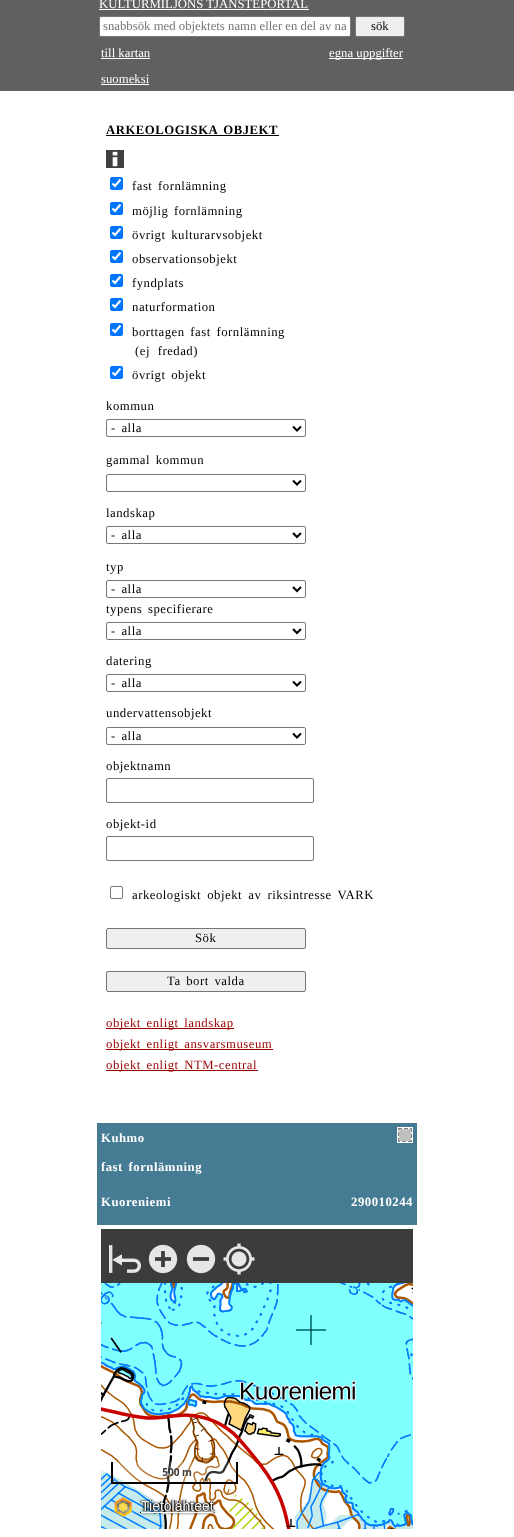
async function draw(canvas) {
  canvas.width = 514
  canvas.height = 1537
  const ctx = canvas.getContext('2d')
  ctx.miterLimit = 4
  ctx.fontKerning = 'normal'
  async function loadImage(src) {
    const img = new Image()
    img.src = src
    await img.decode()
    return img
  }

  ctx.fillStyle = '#606060'
  ctx.fillRect(0, 0, 514, 1537)
  ctx.font = '12.75px Liberation Serif'
  ctx.fillStyle = '#fff'
  ctx.fillText('KULTURMILJÖNS TJÄNSTEPORTAL', 99, 8)
  ctx.fillRect(99, 9, 210, 1)
  ctx.beginPath()
  ctx.roundRect(99.5, 16.5, 251, 20, 1.5)
  ctx.fill()
  ctx.strokeStyle = '#767676'
  ctx.stroke()
  ctx.fillStyle = '#757575'
  ctx.fillText('snabbsök med objektets namn eller en del av na', 103, 30)
  ctx.fillStyle = '#efefef'
  ctx.beginPath()
  ctx.roundRect(355.5, 16.5, 49, 20, 1.5)
  ctx.fill()
  ctx.stroke()
  ctx.fillStyle = '#000'
  ctx.fillText('sök', 371, 30)
  ctx.fillStyle = '#fff'
  ctx.fillText('till kartan', 101, 57)
  ctx.fillRect(101, 58, 49, 1)
  ctx.fillRect(329, 58, 74, 1)
  ctx.fillText('egna uppgifter', 329, 57)
  ctx.fillText('suomeksi', 101, 83)
  ctx.fillRect(101, 84, 48, 1)
  ctx.fillRect(0, 91, 514, 1446)
  ctx.letterSpacing = '0.5px'
  ctx.wordSpacing = '2px'
  ctx.font = 'bold 12.75px Liberation Serif'
  ctx.fillStyle = '#000'
  ctx.fillText('ARKEOLOGISKA OBJEKT', 106, 134)
  ctx.fillRect(106, 135, 173, 1)
  ctx.drawImage(await loadImage('image0.png'), 106, 150, 18, 18)
  ctx.fillStyle = '#0075ff'
  ctx.beginPath()
  ctx.roundRect(110, 177, 13, 13, 2)
  ctx.fill()
  ctx.beginPath()
  ctx.moveTo(112.5, 183.5)
  ctx.lineTo(115, 186)
  ctx.lineTo(120.5, 179.5)
  ctx.strokeStyle = '#fff'
  ctx.lineWidth = 2.1
  ctx.stroke()
  ctx.font = '12.75px Liberation Serif'
  ctx.fillStyle = '#000'
  ctx.fillText('fast fornlämning', 132, 190)
  ctx.fillStyle = '#0075ff'
  ctx.beginPath()
  ctx.roundRect(110, 202, 13, 13, 2)
  ctx.fill()
  ctx.beginPath()
  ctx.moveTo(112.5, 208.5)
  ctx.lineTo(115, 211)
  ctx.lineTo(120.5, 204.5)
  ctx.stroke()
  ctx.fillStyle = '#000'
  ctx.fillText('möjlig fornlämning', 132, 215)
  ctx.fillStyle = '#0075ff'
  ctx.beginPath()
  ctx.roundRect(110, 226, 13, 13, 2)
  ctx.fill()
  ctx.beginPath()
  ctx.moveTo(112.5, 232.5)
  ctx.lineTo(115, 235)
  ctx.lineTo(120.5, 228.5)
  ctx.stroke()
  ctx.fillStyle = '#000'
  ctx.fillText('övrigt kulturarvsobjekt', 132, 239)
  ctx.fillStyle = '#0075ff'
  ctx.beginPath()
  ctx.roundRect(110, 250, 13, 13, 2)
  ctx.fill()
  ctx.beginPath()
  ctx.moveTo(112.5, 256.5)
  ctx.lineTo(115, 259)
  ctx.lineTo(120.5, 252.5)
  ctx.stroke()
  ctx.wordSpacing = '0px'
  ctx.fillStyle = '#000'
  ctx.fillText('observationsobjekt', 132, 263)
  ctx.fillStyle = '#0075ff'
  ctx.beginPath()
  ctx.roundRect(110, 274, 13, 13, 2)
  ctx.fill()
  ctx.beginPath()
  ctx.moveTo(112.5, 280.5)
  ctx.lineTo(115, 283)
  ctx.lineTo(120.5, 276.5)
  ctx.stroke()
  ctx.fillStyle = '#000'
  ctx.fillText('fyndplats', 132, 287)
  ctx.fillStyle = '#0075ff'
  ctx.beginPath()
  ctx.roundRect(110, 298, 13, 13, 2)
  ctx.fill()
  ctx.beginPath()
  ctx.moveTo(112.5, 304.5)
  ctx.lineTo(115, 307)
  ctx.lineTo(120.5, 300.5)
  ctx.stroke()
  ctx.fillStyle = '#000'
  ctx.fillText('naturformation', 132, 311)
  ctx.fillStyle = '#0075ff'
  ctx.beginPath()
  ctx.roundRect(110, 323, 13, 13, 2)
  ctx.fill()
  ctx.beginPath()
  ctx.moveTo(112.5, 329.5)
  ctx.lineTo(115, 332)
  ctx.lineTo(120.5, 325.5)
  ctx.stroke()
  ctx.wordSpacing = '2px'
  ctx.fillStyle = '#000'
  ctx.fillText('borttagen fast fornlämning', 132, 336)
  ctx.wordSpacing = '4px'
  ctx.fillText('(ej fredad)', 135, 355)
  ctx.fillStyle = '#0075ff'
  ctx.beginPath()
  ctx.roundRect(110, 366, 13, 13, 2)
  ctx.fill()
  ctx.beginPath()
  ctx.moveTo(112.5, 372.5)
  ctx.lineTo(115, 375)
  ctx.lineTo(120.5, 368.5)
  ctx.stroke()
  ctx.wordSpacing = '2px'
  ctx.fillStyle = '#000'
  ctx.fillText('övrigt objekt', 132, 379)
  ctx.wordSpacing = '0px'
  ctx.fillText('kommun', 106, 410)
  ctx.beginPath()
  ctx.roundRect(106.5, 419.5, 199, 17, 1.5)
  ctx.strokeStyle = '#767676'
  ctx.lineWidth = 1
  ctx.stroke()
  ctx.beginPath()
  ctx.moveTo(293, 426.5)
  ctx.lineTo(297, 430.5)
  ctx.lineTo(301, 426.5)
  ctx.strokeStyle = '#000'
  ctx.lineWidth = 2
  ctx.stroke()
  ctx.wordSpacing = '2px'
  ctx.fillText('- alla', 111, 432)
  ctx.fillText('gammal kommun', 106, 464)
  ctx.beginPath()
  ctx.roundRect(106.5, 474.5, 199, 17, 1.5)
  ctx.strokeStyle = '#767676'
  ctx.lineWidth = 1
  ctx.stroke()
  ctx.beginPath()
  ctx.moveTo(293, 480.5)
  ctx.lineTo(297, 484.5)
  ctx.lineTo(301, 480.5)
  ctx.strokeStyle = '#000'
  ctx.lineWidth = 2
  ctx.stroke()
  ctx.wordSpacing = '0px'
  ctx.fillText('landskap', 106, 517)
  ctx.beginPath()
  ctx.roundRect(106.5, 526.5, 199, 17, 1.5)
  ctx.strokeStyle = '#767676'
  ctx.lineWidth = 1
  ctx.stroke()
  ctx.beginPath()
  ctx.moveTo(293, 533)
  ctx.lineTo(297, 537)
  ctx.lineTo(301, 533)
  ctx.strokeStyle = '#000'
  ctx.lineWidth = 2
  ctx.stroke()
  ctx.wordSpacing = '2px'
  ctx.fillText('- alla', 111, 539)
  ctx.wordSpacing = '0px'
  ctx.fillText('typ', 106, 571)
  ctx.beginPath()
  ctx.roundRect(106.5, 580.5, 199, 17, 1.5)
  ctx.strokeStyle = '#767676'
  ctx.lineWidth = 1
  ctx.stroke()
  ctx.beginPath()
  ctx.moveTo(293, 587)
  ctx.lineTo(297, 591)
  ctx.lineTo(301, 587)
  ctx.strokeStyle = '#000'
  ctx.lineWidth = 2
  ctx.stroke()
  ctx.wordSpacing = '2px'
  ctx.fillText('- alla', 111, 593)
  ctx.fillText('typens specifierare', 106, 613)
  ctx.beginPath()
  ctx.roundRect(106.5, 622.5, 199, 17, 1.5)
  ctx.strokeStyle = '#767676'
  ctx.lineWidth = 1
  ctx.stroke()
  ctx.beginPath()
  ctx.moveTo(293, 629)
  ctx.lineTo(297, 633)
  ctx.lineTo(301, 629)
  ctx.strokeStyle = '#000'
  ctx.lineWidth = 2
  ctx.stroke()
  ctx.fillText('- alla', 111, 635)
  ctx.wordSpacing = '0px'
  ctx.fillText('datering', 106, 665)
  ctx.beginPath()
  ctx.roundRect(106.5, 674.5, 199, 17, 1.5)
  ctx.strokeStyle = '#767676'
  ctx.lineWidth = 1
  ctx.stroke()
  ctx.beginPath()
  ctx.moveTo(293, 681.5)
  ctx.lineTo(297, 685.5)
  ctx.lineTo(301, 681.5)
  ctx.strokeStyle = '#000'
  ctx.lineWidth = 2
  ctx.stroke()
  ctx.wordSpacing = '2px'
  ctx.fillText('- alla', 111, 687)
  ctx.wordSpacing = '0px'
  ctx.fillText('undervattensobjekt', 106, 717)
  ctx.beginPath()
  ctx.roundRect(106.5, 727.5, 199, 17, 1.5)
  ctx.strokeStyle = '#767676'
  ctx.lineWidth = 1
  ctx.stroke()
  ctx.beginPath()
  ctx.moveTo(293, 733.5)
  ctx.lineTo(297, 737.5)
  ctx.lineTo(301, 733.5)
  ctx.strokeStyle = '#000'
  ctx.lineWidth = 2
  ctx.stroke()
  ctx.wordSpacing = '2px'
  ctx.fillText('- alla', 111, 740)
  ctx.wordSpacing = '0px'
  ctx.fillText('objektnamn', 106, 770)
  ctx.beginPath()
  ctx.roundRect(106.5, 778.5, 207, 24, 1.5)
  ctx.strokeStyle = '#767676'
  ctx.lineWidth = 1
  ctx.stroke()
  ctx.fillText('objekt-id', 106, 828)
  ctx.beginPath()
  ctx.roundRect(106.5, 836.5, 207, 24, 1.5)
  ctx.stroke()
  ctx.beginPath()
  ctx.roundRect(110.5, 886.5, 12, 12, 1.5)
  ctx.stroke()
  ctx.wordSpacing = '2.5px'
  ctx.fillText('arkeologiskt objekt av riksintresse VARK', 132, 899)
  ctx.fillStyle = '#efefef'
  ctx.beginPath()
  ctx.roundRect(106.5, 928.5, 199, 20, 1.5)
  ctx.fill()
  ctx.stroke()
  ctx.wordSpacing = '0px'
  ctx.fillStyle = '#000'
  ctx.fillText('Sök', 195, 942)
  ctx.fillStyle = '#efefef'
  ctx.beginPath()
  ctx.roundRect(106.5, 971.5, 199, 20, 1.5)
  ctx.fill()
  ctx.stroke()
  ctx.wordSpacing = '2px'
  ctx.fillStyle = '#000'
  ctx.fillText('Ta bort valda', 167, 985)
  ctx.fillStyle = '#900'
  ctx.fillRect(106, 1028, 128, 1)
  ctx.fillText('objekt enligt landskap', 106, 1027)
  ctx.fillRect(106, 1049, 167, 1)
  ctx.fillText('objekt enligt ansvarsmuseum', 106, 1048)
  ctx.fillRect(106, 1070, 152, 1)
  ctx.fillText('objekt enligt NTM-central', 106, 1069)
  ctx.fillStyle = '#457b93'
  ctx.fillRect(97, 1123, 320, 58)
  ctx.wordSpacing = '0px'
  ctx.font = 'bold 12.75px Liberation Serif'
  ctx.fillStyle = '#fff'
  ctx.fillText('Kuhmo', 101, 1142)
  ctx.drawImage(await loadImage('image1.png'), 397, 1127, 16, 16)
  ctx.wordSpacing = '2px'
  ctx.fillText('fast fornlämning', 101, 1171)
  ctx.fillStyle = '#457b93'
  ctx.fillRect(97, 1181, 320, 44)
  ctx.wordSpacing = '0px'
  ctx.fillStyle = '#fff'
  ctx.fillText('Kuoreniemi', 101, 1206)
  ctx.fillText('290010244', 351, 1206)
  ctx.drawImage(await loadImage('image2.png'), 101, 1229, 312, 300)
}

draw(document.querySelector('canvas'))
